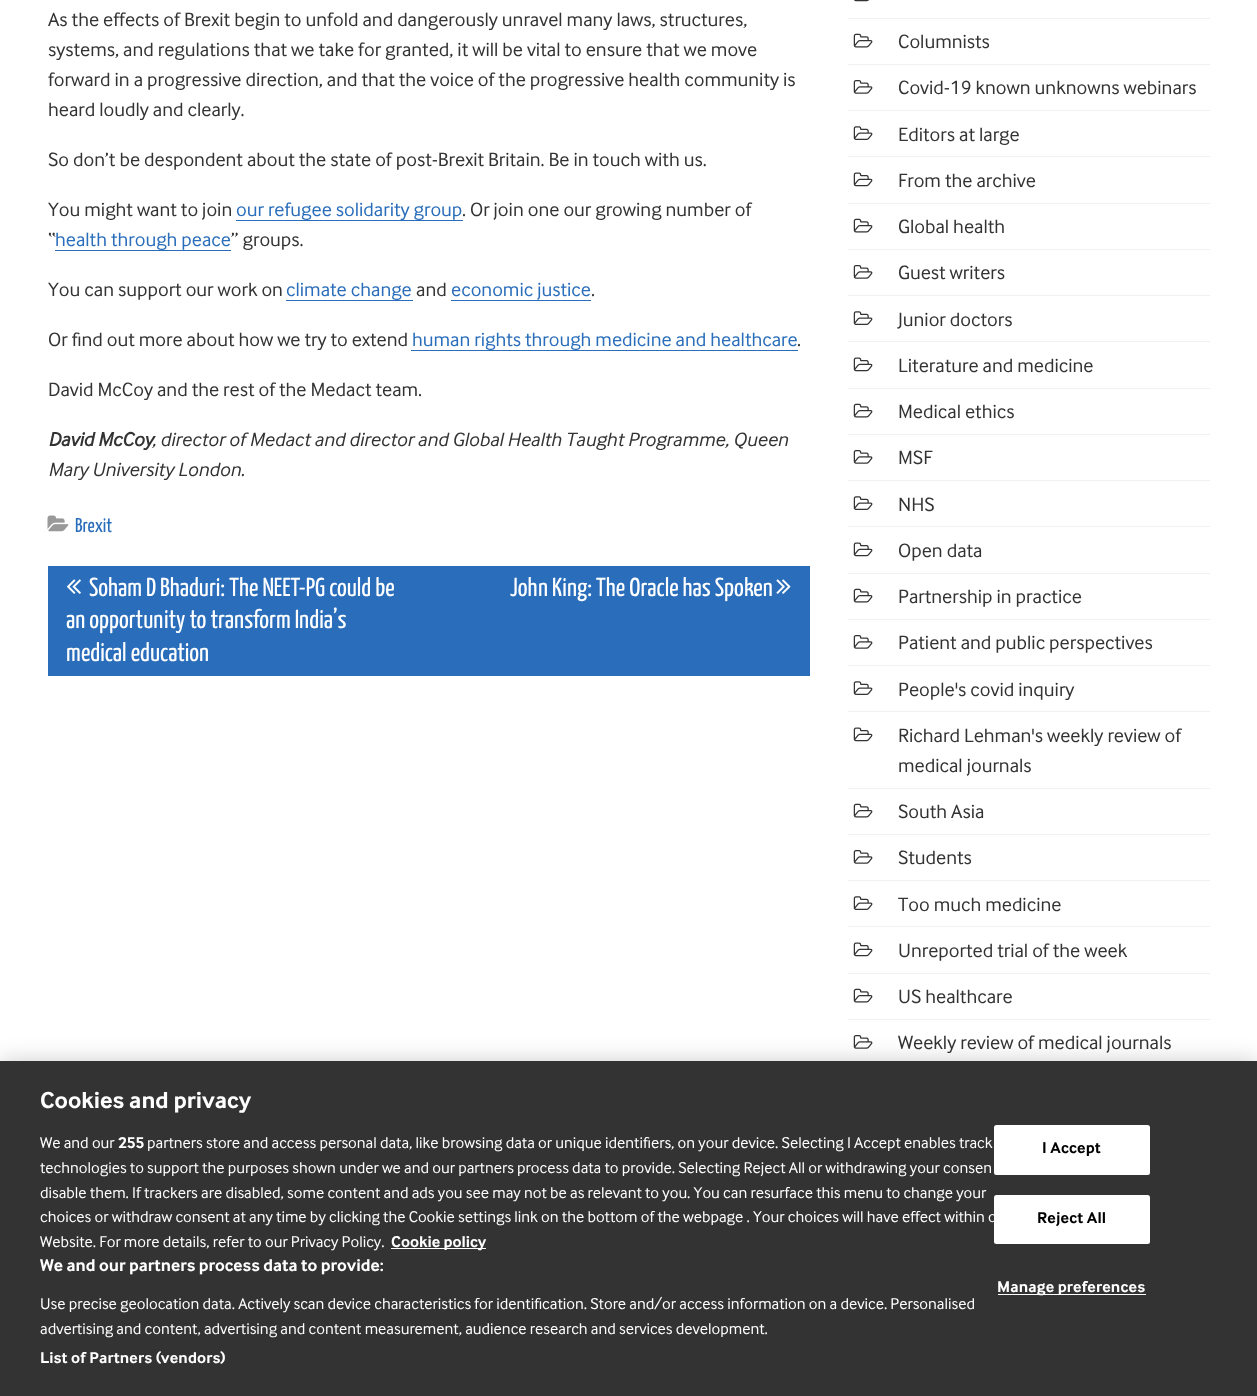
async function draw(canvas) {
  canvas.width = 1257
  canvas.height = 1396
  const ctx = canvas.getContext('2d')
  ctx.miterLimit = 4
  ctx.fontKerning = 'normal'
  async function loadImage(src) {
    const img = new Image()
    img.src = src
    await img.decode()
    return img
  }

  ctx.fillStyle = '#fff'
  ctx.fillRect(0, 0, 1257, 1396)
  ctx.font = '20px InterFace'
  ctx.fillStyle = '#333'
  ctx.fillText('As the effects of Brexit begin to unfold and dangerously unravel many laws, structures,', 48, 26)
  ctx.fillText('systems, and regulations that we take for granted, it will be vital to ensure that we move', 48, 56)
  ctx.fillText('forward in a progressive direction, and that the voice of the progressive health community is', 48, 86)
  ctx.fillText('heard loudly and clearly.', 48, 116)
  ctx.fillText('So don’t be despondent about the state of post-Brexit Britain. Be in touch with us.', 48, 166)
  ctx.fillText('You might want to join', 48, 216)
  ctx.fillStyle = '#2a6ebb'
  ctx.fillRect(236, 220, 227, 1)
  ctx.fillText('our refugee solidarity group', 236, 216)
  ctx.fillStyle = '#333'
  ctx.fillText('. Or join one our growing number of', 462, 216)
  ctx.fillText('“', 48, 246)
  ctx.fillStyle = '#2a6ebb'
  ctx.fillRect(55, 250, 176, 1)
  ctx.fillText('health through peace', 55, 246)
  ctx.fillStyle = '#333'
  ctx.fillText('” groups.', 231, 246)
  ctx.fillText('You can support our work on', 48, 296)
  ctx.fillStyle = '#2a6ebb'
  ctx.fillRect(286, 300, 127, 1)
  ctx.fillText('climate change', 286, 296)
  ctx.fillStyle = '#333'
  ctx.fillText('and', 416, 296)
  ctx.fillStyle = '#2a6ebb'
  ctx.fillText('economic justice', 451, 296)
  ctx.fillRect(451, 300, 140, 1)
  ctx.fillStyle = '#333'
  ctx.fillText('.', 591, 296)
  ctx.fillText('Or find out more about how we try to extend', 48, 346)
  ctx.fillStyle = '#2a6ebb'
  ctx.fillRect(411, 350, 387, 1)
  ctx.fillText('human rights through medicine and healthcare', 412, 346)
  ctx.fillStyle = '#333'
  ctx.fillText('.', 797, 346)
  ctx.fillText('David McCoy and the rest of the Medact team.', 48, 396)
  ctx.font = 'italic bold 20px InterFace'
  ctx.fillText('David McCoy', 48, 446)
  ctx.font = 'italic 20px InterFace'
  ctx.fillText(', director of Medact and director and Global Health Taught Programme, Queen', 152, 446)
  ctx.fillText('Mary University London.', 48, 476)
  ctx.drawImage(await loadImage('image0.png'), 47, 515, 22, 17)
  ctx.font = '20px Yanone Kaffeesatz'
  ctx.fillStyle = '#2a6ebb'
  ctx.fillText('Brexit', 75, 532)
  ctx.fillRect(48, 566, 762, 110)
  ctx.drawImage(await loadImage('image1.png'), 66, 579, 15, 15)
  ctx.font = '26px Yanone Kaffeesatz'
  ctx.fillStyle = '#fff'
  ctx.fillText('Soham D Bhaduri: The NEET-PG could be', 89, 596)
  ctx.fillText('an opportunity to transform India’s', 66, 628)
  ctx.fillText('medical education', 66, 661)
  ctx.fillText('John King: The Oracle has Spoken', 510, 596)
  ctx.drawImage(await loadImage('image2.png'), 776, 579, 15, 15)
  ctx.fillStyle = '#f1f1f1'
  ctx.fillRect(848, 18, 362, 1)
  ctx.drawImage(await loadImage('image3.png'), 854, 0, 15, 2)
  ctx.fillRect(848, 64, 362, 1)
  ctx.drawImage(await loadImage('image4.png'), 853, 33, 20, 15)
  ctx.font = '20px InterFace'
  ctx.fillStyle = '#333'
  ctx.fillText('Columnists', 898, 48)
  ctx.fillStyle = '#f1f1f1'
  ctx.fillRect(848, 110, 362, 1)
  ctx.drawImage(await loadImage('image5.png'), 853, 80, 20, 14)
  ctx.fillStyle = '#333'
  ctx.fillText('Covid-19 known unknowns webinars', 898, 94)
  ctx.fillStyle = '#f1f1f1'
  ctx.fillRect(848, 156, 362, 1)
  ctx.drawImage(await loadImage('image6.png'), 853, 126, 20, 14)
  ctx.fillStyle = '#333'
  ctx.fillText('Editors at large', 898, 141)
  ctx.fillStyle = '#f1f1f1'
  ctx.fillRect(848, 203, 362, 1)
  ctx.drawImage(await loadImage('image7.png'), 853, 172, 20, 15)
  ctx.fillStyle = '#333'
  ctx.fillText('From the archive', 898, 187)
  ctx.fillStyle = '#f1f1f1'
  ctx.fillRect(848, 249, 362, 1)
  ctx.drawImage(await loadImage('image4.png'), 853, 218, 20, 15)
  ctx.fillStyle = '#333'
  ctx.fillText('Global health', 898, 233)
  ctx.fillStyle = '#f1f1f1'
  ctx.fillRect(848, 295, 362, 1)
  ctx.drawImage(await loadImage('image5.png'), 853, 265, 20, 14)
  ctx.fillStyle = '#333'
  ctx.fillText('Guest writers', 898, 279)
  ctx.fillStyle = '#f1f1f1'
  ctx.fillRect(848, 341, 362, 1)
  ctx.drawImage(await loadImage('image6.png'), 853, 311, 20, 14)
  ctx.fillStyle = '#333'
  ctx.fillText('Junior doctors', 898, 326)
  ctx.fillStyle = '#f1f1f1'
  ctx.fillRect(848, 388, 362, 1)
  ctx.drawImage(await loadImage('image7.png'), 853, 357, 20, 15)
  ctx.fillStyle = '#333'
  ctx.fillText('Literature and medicine', 898, 372)
  ctx.fillStyle = '#f1f1f1'
  ctx.fillRect(848, 434, 362, 1)
  ctx.drawImage(await loadImage('image4.png'), 853, 403, 20, 15)
  ctx.fillStyle = '#333'
  ctx.fillText('Medical ethics', 898, 418)
  ctx.fillStyle = '#f1f1f1'
  ctx.fillRect(848, 480, 362, 1)
  ctx.drawImage(await loadImage('image5.png'), 853, 450, 20, 14)
  ctx.fillStyle = '#333'
  ctx.fillText('MSF', 898, 464)
  ctx.fillStyle = '#f1f1f1'
  ctx.fillRect(848, 526, 362, 1)
  ctx.drawImage(await loadImage('image6.png'), 853, 496, 20, 14)
  ctx.fillStyle = '#333'
  ctx.fillText('NHS', 898, 511)
  ctx.fillStyle = '#f1f1f1'
  ctx.fillRect(848, 573, 362, 1)
  ctx.drawImage(await loadImage('image7.png'), 853, 542, 20, 15)
  ctx.fillStyle = '#333'
  ctx.fillText('Open data', 898, 557)
  ctx.fillStyle = '#f1f1f1'
  ctx.fillRect(848, 619, 362, 1)
  ctx.drawImage(await loadImage('image4.png'), 853, 588, 20, 15)
  ctx.fillStyle = '#333'
  ctx.fillText('Partnership in practice', 898, 603)
  ctx.fillStyle = '#f1f1f1'
  ctx.fillRect(848, 665, 362, 1)
  ctx.drawImage(await loadImage('image5.png'), 853, 635, 20, 14)
  ctx.fillStyle = '#333'
  ctx.fillText('Patient and public perspectives', 898, 649)
  ctx.fillStyle = '#f1f1f1'
  ctx.fillRect(848, 711, 362, 1)
  ctx.drawImage(await loadImage('image6.png'), 853, 681, 20, 14)
  ctx.fillStyle = '#333'
  ctx.fillText('People\'s covid inquiry', 898, 696)
  ctx.fillStyle = '#f1f1f1'
  ctx.fillRect(848, 788, 362, 1)
  ctx.drawImage(await loadImage('image7.png'), 853, 727, 20, 15)
  ctx.fillStyle = '#333'
  ctx.fillText('Richard Lehman\'s weekly review of', 898, 742)
  ctx.fillText('medical journals', 898, 772)
  ctx.fillStyle = '#f1f1f1'
  ctx.fillRect(848, 834, 362, 1)
  ctx.drawImage(await loadImage('image4.png'), 853, 803, 20, 15)
  ctx.fillStyle = '#333'
  ctx.fillText('South Asia', 898, 818)
  ctx.fillStyle = '#f1f1f1'
  ctx.fillRect(848, 880, 362, 1)
  ctx.drawImage(await loadImage('image5.png'), 853, 850, 20, 14)
  ctx.fillStyle = '#333'
  ctx.fillText('Students', 898, 864)
  ctx.fillStyle = '#f1f1f1'
  ctx.fillRect(848, 926, 362, 1)
  ctx.drawImage(await loadImage('image6.png'), 853, 896, 20, 14)
  ctx.fillStyle = '#333'
  ctx.fillText('Too much medicine', 898, 911)
  ctx.fillStyle = '#f1f1f1'
  ctx.fillRect(848, 973, 362, 1)
  ctx.drawImage(await loadImage('image7.png'), 853, 942, 20, 15)
  ctx.fillStyle = '#333'
  ctx.fillText('Unreported trial of the week', 898, 957)
  ctx.fillStyle = '#f1f1f1'
  ctx.fillRect(848, 1019, 362, 1)
  ctx.drawImage(await loadImage('image4.png'), 853, 988, 20, 15)
  ctx.fillStyle = '#333'
  ctx.fillText('US healthcare', 898, 1003)
  ctx.drawImage(await loadImage('image5.png'), 853, 1035, 20, 14)
  ctx.fillText('Weekly review of medical journals', 898, 1049)
  ctx.fillStyle = '#00000033'
  ctx.filter = 'blur(11px)'
  ctx.beginPath()
  ctx.rect(0, 1061, 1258, 335)
  ctx.fill()
  ctx.filter = 'none'
  ctx.fillStyle = '#333'
  ctx.fillRect(0, 1061, 1257, 335)
  ctx.font = 'bold 24px InterFace'
  ctx.fillStyle = '#fff'
  ctx.fillText('Cookies and privacy', 40, 1108)
  ctx.font = '16.25px InterFace'
  ctx.fillText('We and our', 40, 1148)
  ctx.font = 'bold 16.25px InterFace'
  ctx.fillText('255', 118, 1148)
  ctx.font = '16.25px InterFace'
  ctx.fillText('partners store and access personal data, like browsing data or unique identifiers, on your device. Selecting I Accept enables track', 147, 1148)
  ctx.fillText('technologies to support the purposes shown under we and our partners process data to provide. Selecting Reject All or withdrawing your consen', 40, 1173)
  ctx.fillText('disable them. If trackers are disabled, some content and ads you see may not be as relevant to you. You can resurface this menu to change your', 40, 1198)
  ctx.fillText('choices or withdraw consent at any time by clicking the Cookie settings link on the bottom of the webpage . Your choices will have effect within o', 40, 1222)
  ctx.fillText('Website. For more details, refer to our Privacy Policy.', 40, 1247)
  ctx.fillRect(391, 1248, 95, 1)
  ctx.font = 'bold 16.25px InterFace'
  ctx.fillText('Cookie policy', 391, 1247)
  ctx.font = 'bold 17.6px InterFace'
  ctx.fillText('We and our partners process data to provide:', 40, 1271)
  ctx.font = '16.25px InterFace'
  ctx.fillText('Use precise geolocation data. Actively scan device characteristics for identification. Store and/or access information on a device. Personalised', 40, 1309)
  ctx.fillText('advertising and content, advertising and content measurement, audience research and services development.', 40, 1334)
  ctx.letterSpacing = '0.15px'
  ctx.font = 'bold 16.25px InterFace'
  ctx.fillText('List of Partners (vendors)', 40, 1363)
  ctx.beginPath()
  ctx.roundRect(994, 1125, 156, 50, 2.5)
  ctx.fill()
  ctx.fillStyle = '#000'
  ctx.fillText('I Accept', 1042, 1153)
  ctx.fillStyle = '#fff'
  ctx.beginPath()
  ctx.roundRect(994, 1195, 156, 49, 2.5)
  ctx.fill()
  ctx.fillStyle = '#000'
  ctx.fillText('Reject All', 1037, 1223)
  ctx.fillStyle = '#fff'
  ctx.fillRect(998, 1294, 148, 1)
  ctx.fillText('Manage preferences', 997, 1292)
}

draw(document.querySelector('canvas'))
